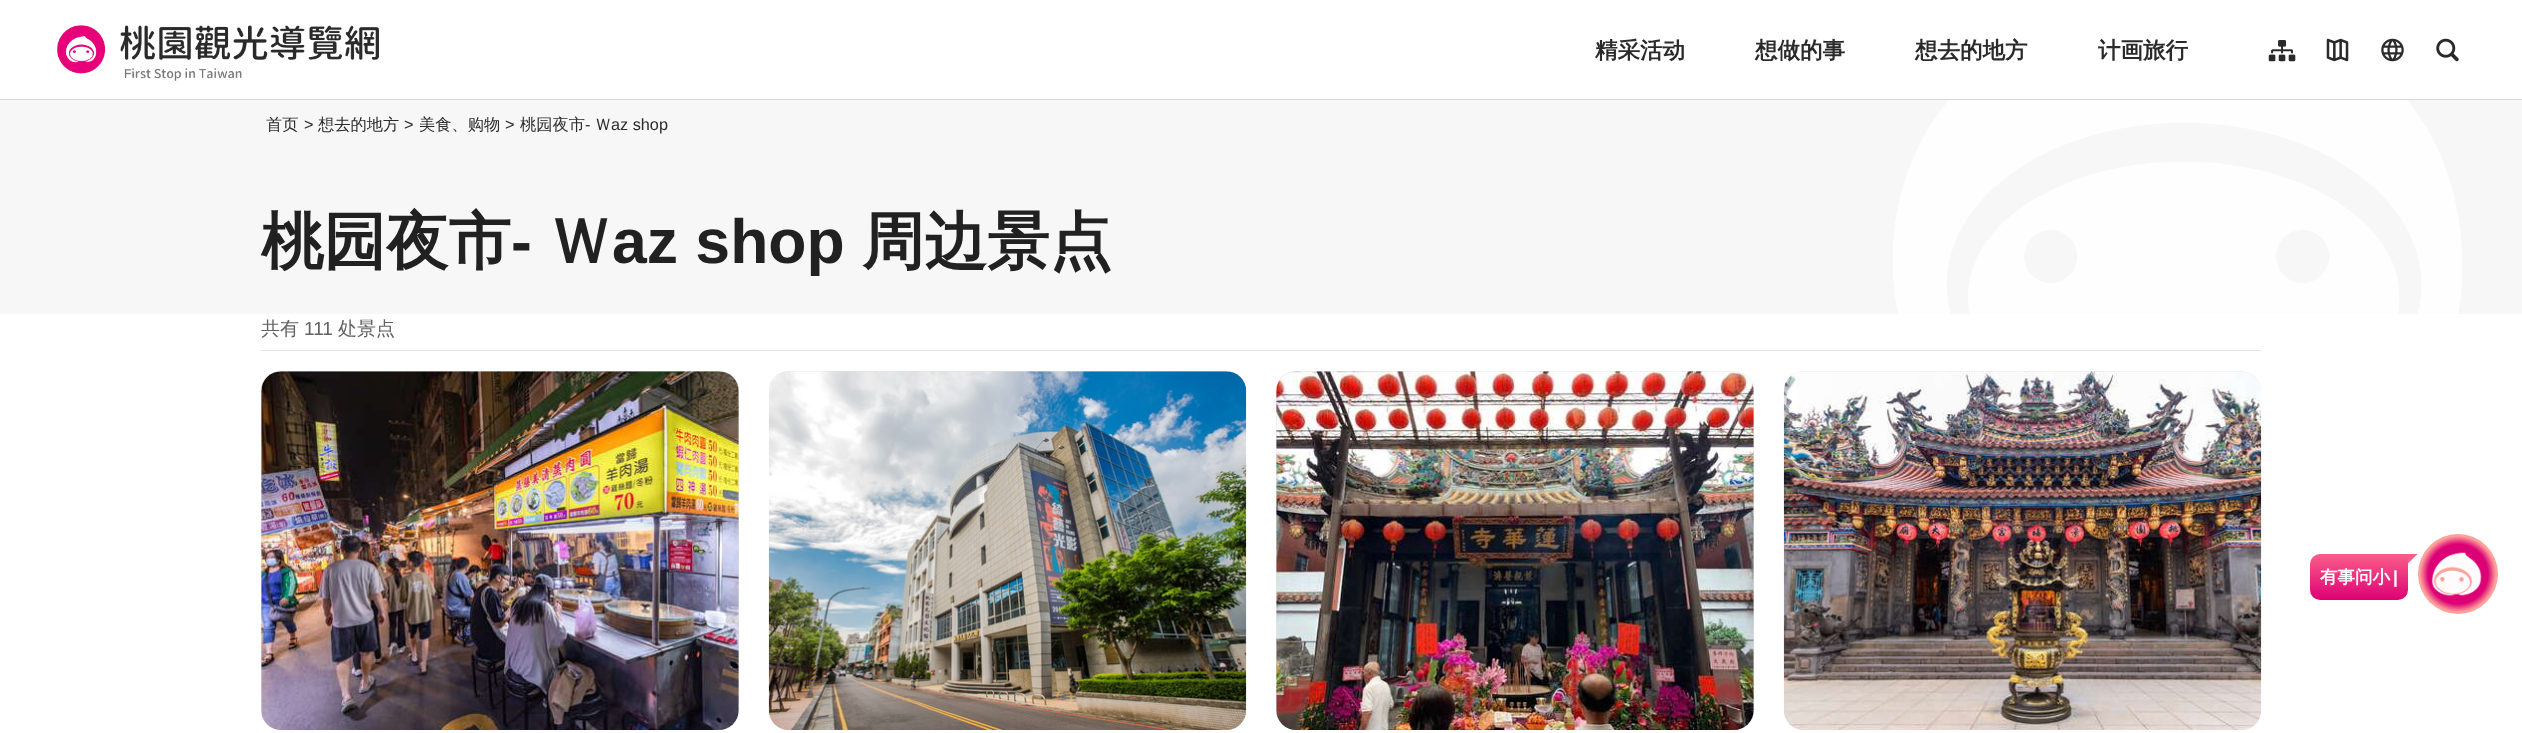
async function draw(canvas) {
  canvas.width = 2522
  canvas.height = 733
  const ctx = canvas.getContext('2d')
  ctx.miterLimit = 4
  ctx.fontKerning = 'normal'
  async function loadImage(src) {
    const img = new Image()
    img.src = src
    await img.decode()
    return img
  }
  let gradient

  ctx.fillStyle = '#fff'
  ctx.fillRect(0, 0, 2522, 733)
  ctx.drawImage(await loadImage('image0.png'), 57, 25, 322, 56)
  ctx.font = 'bold 22.5px WenQuanYi Zen Hei'
  ctx.fillStyle = '#2a2a2a'
  ctx.fillText('精采活动', 1595, 58)
  ctx.fillText('想做的事', 1755, 58)
  ctx.fillText('想去的地方', 1915, 58)
  ctx.fillText('计画旅行', 2098, 58)
  ctx.drawImage(await loadImage('image1.png'), 2268, 40, 28, 22)
  ctx.drawImage(await loadImage('image2.png'), 2326, 38, 23, 24)
  ctx.drawImage(await loadImage('image3.png'), 2381, 38, 23, 24)
  ctx.drawImage(await loadImage('image4.png'), 2436, 38, 23, 24)
  ctx.fillStyle = '#d7d7d7'
  ctx.fillRect(0, 99, 2522, 1)
  ctx.fillStyle = '#f7f7f7'
  ctx.fillRect(0, 100, 2522, 214)
  ctx.font = '500 16.25px WenQuanYi Zen Hei'
  ctx.fillStyle = '#2a2a2a'
  ctx.fillText('首页', 266, 130)
  ctx.font = '16.25px Liberation Sans'
  ctx.fillText('>', 304, 130)
  ctx.font = '500 16.25px WenQuanYi Zen Hei'
  ctx.fillText('想去的地方', 318, 130)
  ctx.font = '16.25px Liberation Sans'
  ctx.fillText('>', 404, 130)
  ctx.font = '500 16.25px WenQuanYi Zen Hei'
  ctx.fillText('美食、购物', 419, 130)
  ctx.font = '16.25px Liberation Sans'
  ctx.fillText('>', 505, 130)
  ctx.font = '500 16.25px WenQuanYi Zen Hei'
  ctx.fillText('桃园夜市', 520, 130)
  ctx.font = '16.25px Liberation Sans'
  ctx.fillText('-', 585, 130)
  ctx.font = '500 16.25px WenQuanYi Zen Hei'
  ctx.fillText('Ｗ', 595, 130)
  ctx.font = '16.25px Liberation Sans'
  ctx.fillText('az shop', 611, 130)
  ctx.drawImage(await loadImage('image5.png'), 1893, 100, 569, 214)
  ctx.font = 'bold 62.5px WenQuanYi Zen Hei'
  ctx.fillStyle = '#212121'
  ctx.fillText('桃园夜市', 261, 263)
  ctx.font = 'bold 62.5px Liberation Sans'
  ctx.fillText('-', 511, 263)
  ctx.font = 'bold 62.5px WenQuanYi Zen Hei'
  ctx.fillText('Ｗ', 549, 263)
  ctx.font = 'bold 62.5px Liberation Sans'
  ctx.fillText('az shop', 612, 263)
  ctx.font = 'bold 62.5px WenQuanYi Zen Hei'
  ctx.fillText('周边景点', 862, 263)
  ctx.fillStyle = '#e3e3e3'
  ctx.fillRect(261, 350, 2000, 1)
  ctx.font = '500 19px WenQuanYi Zen Hei'
  ctx.fillStyle = '#626262'
  ctx.fillText('共有', 261, 335)
  ctx.font = '19px Liberation Sans'
  ctx.fillText('111', 304, 335)
  ctx.font = '500 19px WenQuanYi Zen Hei'
  ctx.fillText('处景点', 338, 335)
  ctx.fillStyle = '#e6e6e6'
  ctx.beginPath()
  ctx.roundRect(261, 371, 478, 359, 20)
  ctx.fill()
  ctx.drawImage(await loadImage('image6.png'), 261, 371, 478, 359)
  ctx.beginPath()
  ctx.roundRect(769, 371, 477, 359, 20)
  ctx.fill()
  ctx.drawImage(await loadImage('image7.png'), 768, 371, 479, 359)
  ctx.beginPath()
  ctx.roundRect(1276, 371, 478, 359, 20)
  ctx.fill()
  ctx.drawImage(await loadImage('image8.png'), 1276, 371, 478, 359)
  ctx.beginPath()
  ctx.roundRect(1784, 371, 477, 359, 20)
  ctx.fill()
  ctx.drawImage(await loadImage('image9.png'), 1783, 371, 479, 359)
  ctx.save()
  ctx.beginPath()
  ctx.rect(2408, 554, 10, 10)
  ctx.clip()
  ctx.fillStyle = '#fc5e8a'
  ctx.beginPath()
  ctx.moveTo(2417.5, 554)
  ctx.lineTo(2407.5, 554)
  ctx.lineTo(2407.5, 564)
  ctx.closePath()
  ctx.fill()
  ctx.restore()
  gradient = ctx.createLinearGradient(2359, 554, 2359, 600)
  gradient.addColorStop(0, '#fc5e8a')
  gradient.addColorStop(1, '#dc0175')
  ctx.fillStyle = gradient
  ctx.beginPath()
  ctx.roundRect(2310, 554, 98, 46, [10, 0, 10, 10])
  ctx.fill()
  ctx.font = 'bold 17.5px WenQuanYi Zen Hei'
  ctx.fillStyle = '#fff'
  ctx.fillText('有事问小', 2320, 583)
  ctx.font = 'bold 17.5px Liberation Sans'
  ctx.fillText('|', 2393, 583)
  gradient = ctx.createRadialGradient(2458, 574, 0, 2458, 574, 40)
  gradient.addColorStop(0.75, '#dc0175')
  gradient.addColorStop(0.95, '#fea29a')
  ctx.fillStyle = gradient
  ctx.beginPath()
  ctx.arc(2458, 574, 40, 0, 2 * Math.PI)
  ctx.fill()
  ctx.drawImage(await loadImage('image10.png'), 2431, 552, 51, 44)
}

draw(document.querySelector('canvas'))
